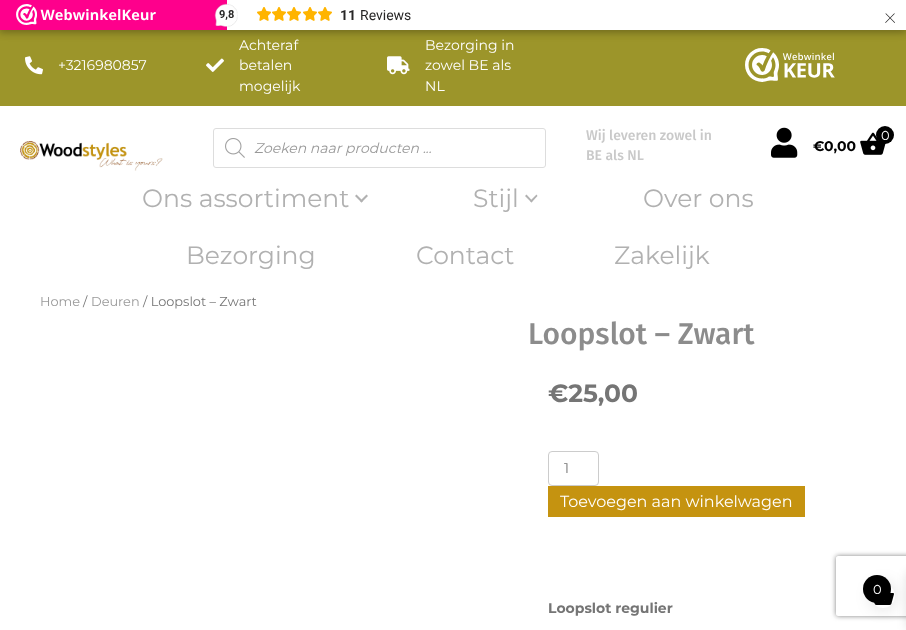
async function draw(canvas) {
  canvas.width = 906
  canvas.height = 630
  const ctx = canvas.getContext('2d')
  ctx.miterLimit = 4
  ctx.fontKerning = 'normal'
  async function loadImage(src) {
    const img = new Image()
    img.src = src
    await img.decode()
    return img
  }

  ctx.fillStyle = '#fff'
  ctx.fillRect(0, 0, 906, 630)
  ctx.fillStyle = '#9c952a'
  ctx.fillRect(0, 30, 906, 76)
  ctx.fillStyle = '#00000026'
  ctx.filter = 'blur(3px)'
  ctx.beginPath()
  ctx.rect(-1, -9, 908, 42)
  ctx.fill()
  ctx.filter = 'none'
  ctx.filter = 'blur(5px)'
  ctx.beginPath()
  ctx.rect(0, 2, 906, 30)
  ctx.fill()
  ctx.filter = 'none'
  ctx.fillStyle = '#fe008c'
  ctx.fillRect(0, 0, 227, 30)
  ctx.drawImage(await loadImage('image0.png'), 16, 4, 140, 21)
  ctx.fillStyle = '#fff'
  ctx.fillRect(227, 0, 679, 30)
  ctx.drawImage(await loadImage('image1.png'), 257, 7, 14, 14)
  ctx.drawImage(await loadImage('image1.png'), 272, 7, 14, 14)
  ctx.drawImage(await loadImage('image1.png'), 287, 7, 14, 14)
  ctx.drawImage(await loadImage('image1.png'), 303, 7, 14, 14)
  ctx.drawImage(await loadImage('image1.png'), 318, 7, 14, 14)
  ctx.font = 'bold 14px Roboto'
  ctx.fillStyle = '#272626'
  ctx.fillText('11', 340, 20)
  ctx.font = '14px Roboto'
  ctx.fillText('Reviews', 360, 20)
  ctx.font = '100 24px Roboto'
  ctx.fillText('×', 884, 23)
  ctx.drawImage(await loadImage('image2.png'), 214, 3, 24, 25)
  ctx.font = 'bold 11px Roboto'
  ctx.fillText('9,8', 219, 18)
  ctx.drawImage(await loadImage('image3.png'), 25, 56, 18, 19)
  ctx.font = '14px Montserrat'
  ctx.fillStyle = '#fff'
  ctx.fillText('+3216980857', 58, 70)
  ctx.drawImage(await loadImage('image4.png'), 206, 58, 18, 14)
  ctx.fillText('Achteraf', 239, 50)
  ctx.fillText('betalen', 239, 70)
  ctx.fillText('mogelijk', 239, 91)
  ctx.drawImage(await loadImage('image5.png'), 387, 56, 23, 19)
  ctx.fillText('Bezorging in', 425, 50)
  ctx.fillText('zowel BE als', 425, 70)
  ctx.fillText('NL', 425, 91)
  ctx.drawImage(await loadImage('image6.png'), 745, 48, 90, 34)
  ctx.drawImage(await loadImage('image7.png'), 20, 141, 143, 30)
  ctx.beginPath()
  ctx.roundRect(213.5, 128.5, 332, 39, 2.5)
  ctx.strokeStyle = '#ddd'
  ctx.stroke()
  ctx.drawImage(await loadImage('image8.png'), 225, 138, 20, 20)
  ctx.font = 'italic 14px Montserrat'
  ctx.fillStyle = '#999'
  ctx.fillText('Zoeken naar producten ...', 254, 153)
  ctx.font = '500 14px Fira Sans'
  ctx.fillStyle = '#c9c9c9'
  ctx.fillText('Wij leveren zowel in', 586, 140)
  ctx.fillText('BE als NL', 586, 160)
  ctx.drawImage(await loadImage('image9.png'), 771, 127, 27, 31)
  ctx.drawImage(await loadImage('image10.png'), 860, 132, 26, 23)
  ctx.fillStyle = '#000'
  ctx.beginPath()
  ctx.arc(885, 135, 9, 0, 2 * Math.PI)
  ctx.fill()
  ctx.font = '13px Montserrat'
  ctx.fillStyle = '#fff'
  ctx.fillText('0', 881, 140)
  ctx.font = 'bold 14px Montserrat'
  ctx.fillStyle = '#000'
  ctx.fillText('€0,00', 813, 151)
  ctx.font = '25px Montserrat'
  ctx.fillStyle = '#b1b1b1'
  ctx.fillText('Ons assortiment', 142, 207)
  ctx.beginPath()
  ctx.moveTo(366.5, 194.5)
  ctx.lineTo(368, 196)
  ctx.lineTo(361.5, 202.5)
  ctx.lineTo(360, 201)
  ctx.closePath()
  ctx.fill()
  ctx.beginPath()
  ctx.moveTo(356.5, 194.5)
  ctx.lineTo(363, 201)
  ctx.lineTo(361.5, 202.5)
  ctx.lineTo(355, 196)
  ctx.closePath()
  ctx.fill()
  ctx.fillText('Stijl', 473, 207)
  ctx.beginPath()
  ctx.moveTo(536.5, 194.5)
  ctx.lineTo(537.5, 196)
  ctx.lineTo(531.5, 202.5)
  ctx.lineTo(530, 201)
  ctx.closePath()
  ctx.fill()
  ctx.beginPath()
  ctx.moveTo(526.5, 194.5)
  ctx.lineTo(532.5, 201)
  ctx.lineTo(531.5, 202.5)
  ctx.lineTo(525, 196)
  ctx.closePath()
  ctx.fill()
  ctx.fillText('Over ons', 643, 207)
  ctx.fillText('Bezorging', 186, 264)
  ctx.fillText('Contact', 416, 264)
  ctx.fillText('Zakelijk', 614, 264)
  ctx.font = '12.9px Montserrat'
  ctx.fillStyle = '#999'
  ctx.fillText('Home', 40, 306)
  ctx.fillStyle = '#757575'
  ctx.fillText('/', 83, 306)
  ctx.fillStyle = '#999'
  ctx.fillText('Deuren', 91, 306)
  ctx.fillStyle = '#757575'
  ctx.fillText('/ Loopslot – Zwart', 143, 306)
  ctx.font = '500 30px Fira Sans'
  ctx.fillStyle = '#8c8c8c'
  ctx.fillText('Loopslot – Zwart', 528, 344)
  ctx.font = 'bold 25px Montserrat'
  ctx.fillStyle = '#757575'
  ctx.fillText('€25,00', 548, 402)
  ctx.beginPath()
  ctx.roundRect(548.5, 451.5, 50, 34, 3.5)
  ctx.strokeStyle = '#ccc'
  ctx.stroke()
  ctx.font = '14px Montserrat'
  ctx.fillText('1', 564, 473)
  ctx.fillStyle = '#c59310'
  ctx.fillRect(548, 486, 257, 31)
  ctx.font = '16px Montserrat'
  ctx.fillStyle = '#fff'
  ctx.fillText('Toevoegen aan winkelwagen', 560, 507)
  ctx.font = 'bold 14px Montserrat'
  ctx.fillStyle = '#757575'
  ctx.fillText('Loopslot regulier', 548, 613)
  ctx.save()
  ctx.beginPath()
  ctx.moveTo(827, 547)
  ctx.lineTo(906, 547)
  ctx.lineTo(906, 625)
  ctx.lineTo(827, 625)
  ctx.closePath()
  ctx.moveTo(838, 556)
  ctx.lineTo(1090, 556)
  ctx.bezierCurveTo(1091, 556, 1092, 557, 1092, 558)
  ctx.lineTo(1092, 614)
  ctx.bezierCurveTo(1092, 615, 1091, 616, 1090, 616)
  ctx.lineTo(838, 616)
  ctx.bezierCurveTo(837, 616, 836, 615, 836, 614)
  ctx.lineTo(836, 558)
  ctx.bezierCurveTo(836, 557, 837, 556, 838, 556)
  ctx.closePath()
  ctx.clip('evenodd')
  ctx.fillStyle = '#808080'
  ctx.filter = 'blur(2.5px)'
  ctx.beginPath()
  ctx.roundRect(836, 556, 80, 60, 2)
  ctx.fill()
  ctx.filter = 'none'
  ctx.restore()
  ctx.fillStyle = '#0000001a'
  ctx.filter = 'blur(7.5px)'
  ctx.beginPath()
  ctx.roundRect(869, 582, 28, 28, 14)
  ctx.fill()
  ctx.filter = 'none'
  ctx.filter = 'blur(5px)'
  ctx.beginPath()
  ctx.rect(906, 572, 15, 57)
  ctx.fill()
  ctx.filter = 'none'
  ctx.fillStyle = '#fff'
  ctx.beginPath()
  ctx.arc(883, 596, 12, 0, 2 * Math.PI)
  ctx.fill()
  ctx.drawImage(await loadImage('image11.png'), 874, 593, 20, 12)
  ctx.fillStyle = '#000'
  ctx.beginPath()
  ctx.arc(877, 589, 14, 0, 2 * Math.PI)
  ctx.fill()
  ctx.font = '13px Montserrat'
  ctx.fillStyle = '#fff'
  ctx.fillText('0', 873, 594)
}

draw(document.querySelector('canvas'))
